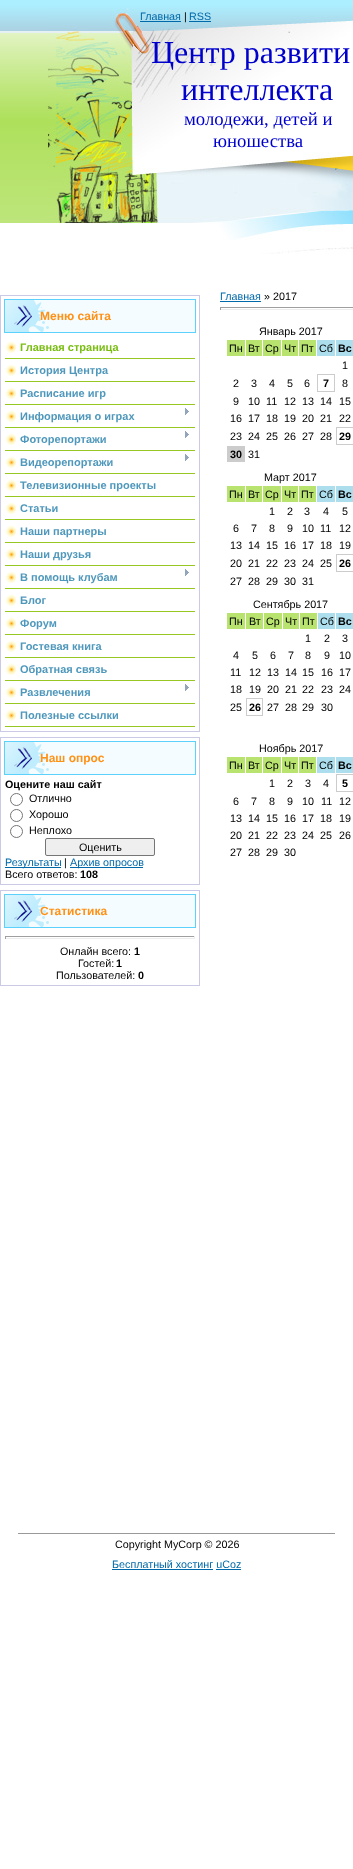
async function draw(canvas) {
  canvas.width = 353
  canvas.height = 1869
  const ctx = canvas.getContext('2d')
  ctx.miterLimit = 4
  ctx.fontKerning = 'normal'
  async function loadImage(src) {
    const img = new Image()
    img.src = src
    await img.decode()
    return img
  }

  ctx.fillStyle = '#fff'
  ctx.fillRect(0, 0, 353, 1869)
  ctx.drawImage(await loadImage('image0.png'), 0, 0, 353, 223)
  ctx.drawImage(await loadImage('image1.png'), 47, 8, 306, 246)
  ctx.font = '10.75px Liberation Sans'
  ctx.fillStyle = '#0069a9'
  ctx.fillText('Главная', 140, 20)
  ctx.fillRect(140, 21, 41, 1)
  ctx.fillStyle = '#000'
  ctx.fillText('|', 184, 20)
  ctx.fillStyle = '#0069a9'
  ctx.fillText('RSS', 189, 20)
  ctx.fillRect(189, 21, 22, 1)
  ctx.font = '32px Liberation Serif'
  ctx.fillStyle = '#0000cd'
  ctx.fillText('Центр развити', 151, 63)
  ctx.fillText('интеллекта', 181, 100)
  ctx.font = '18.75px Liberation Serif'
  ctx.fillText('молодежи, детей и', 184, 125)
  ctx.fillText('юношества', 213, 147)
  ctx.strokeStyle = '#cacae6'
  ctx.strokeRect(0.5, 295.5, 199, 436)
  ctx.fillStyle = '#f5fcff'
  ctx.fillRect(49, 300, 146, 32)
  ctx.drawImage(await loadImage('image2.png'), 5, 300, 44, 32)
  ctx.strokeStyle = '#5bd1fc'
  ctx.strokeRect(4.5, 299.5, 191, 33)
  ctx.font = 'bold 12px Liberation Sans'
  ctx.fillStyle = '#ff9115'
  ctx.fillText('Меню сайта', 40, 320)
  ctx.drawImage(await loadImage('image3.png'), 5, 341, 11, 12)
  ctx.fillStyle = '#97c821'
  ctx.fillRect(5, 358, 190, 1)
  ctx.font = 'bold 11px Liberation Sans'
  ctx.fillStyle = '#79bd11'
  ctx.fillText('Главная страница', 20, 351)
  ctx.drawImage(await loadImage('image3.png'), 5, 364, 11, 12)
  ctx.fillStyle = '#97c821'
  ctx.fillRect(5, 381, 190, 1)
  ctx.fillStyle = '#4f98bc'
  ctx.fillText('История Центра', 20, 374)
  ctx.drawImage(await loadImage('image3.png'), 5, 387, 11, 12)
  ctx.fillStyle = '#97c821'
  ctx.fillRect(5, 404, 190, 1)
  ctx.fillStyle = '#4f98bc'
  ctx.fillText('Расписание игр', 20, 397)
  ctx.drawImage(await loadImage('image3.png'), 5, 410, 11, 12)
  ctx.fillStyle = '#97c821'
  ctx.fillRect(5, 427, 190, 1)
  ctx.fillStyle = '#4f98bc'
  ctx.fillText('Информация о играх', 20, 420)
  ctx.drawImage(await loadImage('image4.png'), 185, 408, 4, 7)
  ctx.drawImage(await loadImage('image3.png'), 5, 433, 11, 12)
  ctx.fillStyle = '#97c821'
  ctx.fillRect(5, 450, 190, 1)
  ctx.fillStyle = '#4f98bc'
  ctx.fillText('Фоторепортажи', 20, 443)
  ctx.drawImage(await loadImage('image4.png'), 185, 431, 4, 7)
  ctx.drawImage(await loadImage('image3.png'), 5, 456, 11, 12)
  ctx.fillStyle = '#97c821'
  ctx.fillRect(5, 473, 190, 1)
  ctx.fillStyle = '#4f98bc'
  ctx.fillText('Видеорепортажи', 20, 466)
  ctx.drawImage(await loadImage('image4.png'), 185, 454, 4, 7)
  ctx.drawImage(await loadImage('image3.png'), 5, 479, 11, 12)
  ctx.fillStyle = '#97c821'
  ctx.fillRect(5, 496, 190, 1)
  ctx.fillStyle = '#4f98bc'
  ctx.fillText('Телевизионные проекты', 20, 489)
  ctx.drawImage(await loadImage('image3.png'), 5, 502, 11, 12)
  ctx.fillStyle = '#97c821'
  ctx.fillRect(5, 519, 190, 1)
  ctx.fillStyle = '#4f98bc'
  ctx.fillText('Статьи', 20, 512)
  ctx.drawImage(await loadImage('image3.png'), 5, 525, 11, 12)
  ctx.fillStyle = '#97c821'
  ctx.fillRect(5, 542, 190, 1)
  ctx.fillStyle = '#4f98bc'
  ctx.fillText('Наши партнеры', 20, 535)
  ctx.drawImage(await loadImage('image3.png'), 5, 548, 11, 12)
  ctx.fillStyle = '#97c821'
  ctx.fillRect(5, 565, 190, 1)
  ctx.fillStyle = '#4f98bc'
  ctx.fillText('Наши друзья', 20, 558)
  ctx.drawImage(await loadImage('image3.png'), 5, 571, 11, 12)
  ctx.fillStyle = '#97c821'
  ctx.fillRect(5, 588, 190, 1)
  ctx.fillStyle = '#4f98bc'
  ctx.fillText('В помощь клубам', 20, 581)
  ctx.drawImage(await loadImage('image4.png'), 185, 569, 4, 7)
  ctx.drawImage(await loadImage('image3.png'), 5, 594, 11, 12)
  ctx.fillStyle = '#97c821'
  ctx.fillRect(5, 611, 190, 1)
  ctx.fillStyle = '#4f98bc'
  ctx.fillText('Блог', 20, 604)
  ctx.drawImage(await loadImage('image3.png'), 5, 617, 11, 12)
  ctx.fillStyle = '#97c821'
  ctx.fillRect(5, 634, 190, 1)
  ctx.fillStyle = '#4f98bc'
  ctx.fillText('Форум', 20, 627)
  ctx.drawImage(await loadImage('image3.png'), 5, 640, 11, 12)
  ctx.fillStyle = '#97c821'
  ctx.fillRect(5, 657, 190, 1)
  ctx.fillStyle = '#4f98bc'
  ctx.fillText('Гостевая книга', 20, 650)
  ctx.drawImage(await loadImage('image3.png'), 5, 663, 11, 12)
  ctx.fillStyle = '#97c821'
  ctx.fillRect(5, 680, 190, 1)
  ctx.fillStyle = '#4f98bc'
  ctx.fillText('Обратная связь', 20, 673)
  ctx.drawImage(await loadImage('image3.png'), 5, 686, 11, 12)
  ctx.fillStyle = '#97c821'
  ctx.fillRect(5, 703, 190, 1)
  ctx.fillStyle = '#4f98bc'
  ctx.fillText('Развлечения', 20, 696)
  ctx.drawImage(await loadImage('image4.png'), 185, 684, 4, 7)
  ctx.drawImage(await loadImage('image3.png'), 5, 709, 11, 12)
  ctx.fillStyle = '#97c821'
  ctx.fillRect(5, 726, 190, 1)
  ctx.fillStyle = '#4f98bc'
  ctx.fillText('Полезные ссылки', 20, 719)
  ctx.strokeStyle = '#cacae6'
  ctx.strokeRect(0.5, 737.5, 199, 147)
  ctx.fillStyle = '#f5fcff'
  ctx.fillRect(49, 742, 146, 32)
  ctx.drawImage(await loadImage('image2.png'), 5, 742, 44, 32)
  ctx.strokeStyle = '#5bd1fc'
  ctx.strokeRect(4.5, 741.5, 191, 33)
  ctx.font = 'bold 12px Liberation Sans'
  ctx.fillStyle = '#ff9115'
  ctx.fillText('Наш опрос', 40, 762)
  ctx.font = 'bold 10.75px Liberation Sans'
  ctx.fillStyle = '#000'
  ctx.fillText('Оцените наш сайт', 5, 788)
  ctx.beginPath()
  ctx.arc(16.5, 799.5, 6, 0, 2 * Math.PI)
  ctx.strokeStyle = '#767676'
  ctx.stroke()
  ctx.font = '10.75px Liberation Sans'
  ctx.fillText('Отлично', 29, 802)
  ctx.beginPath()
  ctx.arc(16.5, 815.5, 6, 0, 2 * Math.PI)
  ctx.stroke()
  ctx.fillText('Хорошо', 29, 818)
  ctx.beginPath()
  ctx.arc(16.5, 831.5, 6, 0, 2 * Math.PI)
  ctx.stroke()
  ctx.fillText('Неплохо', 29, 834)
  ctx.fillStyle = '#efefef'
  ctx.beginPath()
  ctx.roundRect(45.5, 838.5, 109, 17, 1.5)
  ctx.fill()
  ctx.stroke()
  ctx.fillStyle = '#000'
  ctx.fillText('Оценить', 79, 851)
  ctx.fillStyle = '#0069a9'
  ctx.fillRect(5, 867, 56, 1)
  ctx.fillText('Результаты', 5, 866)
  ctx.fillStyle = '#000'
  ctx.fillText('|', 64, 866)
  ctx.fillStyle = '#0069a9'
  ctx.fillRect(70, 867, 73, 1)
  ctx.fillText('Архив опросов', 70, 866)
  ctx.fillStyle = '#000'
  ctx.fillText('Всего ответов:', 5, 878)
  ctx.font = 'bold 10.75px Liberation Sans'
  ctx.fillText('108', 80, 878)
  ctx.strokeStyle = '#cacae6'
  ctx.strokeRect(0.5, 890.5, 199, 95)
  ctx.fillStyle = '#f5fcff'
  ctx.fillRect(49, 895, 146, 32)
  ctx.drawImage(await loadImage('image2.png'), 5, 895, 44, 32)
  ctx.strokeStyle = '#5bd1fc'
  ctx.strokeRect(4.5, 894.5, 191, 33)
  ctx.font = 'bold 12px Liberation Sans'
  ctx.fillStyle = '#ff9115'
  ctx.fillText('Статистика', 40, 915)
  ctx.fillStyle = '#9f9f9f'
  ctx.fillRect(5, 936, 190, 1)
  ctx.fillStyle = '#eee'
  ctx.fillRect(194, 936, 1, 3)
  ctx.fillRect(5, 938, 190, 1)
  ctx.fillStyle = '#9f9f9f'
  ctx.fillRect(5, 936, 1, 3)
  ctx.font = '10.75px Liberation Sans'
  ctx.fillStyle = '#000'
  ctx.fillText('Онлайн всего:', 60, 955)
  ctx.font = 'bold 10.75px Liberation Sans'
  ctx.fillText('1', 134, 955)
  ctx.font = '10.75px Liberation Sans'
  ctx.fillText('Гостей:', 78, 967)
  ctx.font = 'bold 10.75px Liberation Sans'
  ctx.fillText('1', 116, 967)
  ctx.font = '10.75px Liberation Sans'
  ctx.fillText('Пользователей:', 56, 979)
  ctx.font = 'bold 10.75px Liberation Sans'
  ctx.fillText('0', 138, 979)
  ctx.font = '10.75px Liberation Sans'
  ctx.fillStyle = '#0069a9'
  ctx.fillText('Главная', 220, 300)
  ctx.fillRect(220, 301, 41, 1)
  ctx.fillStyle = '#000'
  ctx.fillText('» 2017', 264, 300)
  ctx.fillStyle = '#9f9f9f'
  ctx.fillRect(220, 307, 133, 1)
  ctx.fillStyle = '#eee'
  ctx.fillRect(220, 309, 133, 1)
  ctx.fillStyle = '#9f9f9f'
  ctx.fillRect(220, 307, 1, 3)
  ctx.fillStyle = '#000'
  ctx.fillText('Январь 2017', 259, 335)
  ctx.fillStyle = '#b7e36e'
  ctx.fillRect(227, 340, 18, 16)
  ctx.fillStyle = '#000'
  ctx.fillText('Пн', 229, 352)
  ctx.fillStyle = '#b7e36e'
  ctx.fillRect(246, 340, 16, 16)
  ctx.fillStyle = '#000'
  ctx.fillText('Вт', 248, 352)
  ctx.fillStyle = '#b7e36e'
  ctx.fillRect(263, 340, 18, 16)
  ctx.fillStyle = '#000'
  ctx.fillText('Ср', 265, 352)
  ctx.fillStyle = '#b7e36e'
  ctx.fillRect(282, 340, 16, 16)
  ctx.fillStyle = '#000'
  ctx.fillText('Чт', 284, 352)
  ctx.fillStyle = '#b7e36e'
  ctx.fillRect(299, 340, 17, 16)
  ctx.fillStyle = '#000'
  ctx.fillText('Пт', 301, 352)
  ctx.fillStyle = '#acdeee'
  ctx.fillRect(317, 340, 18, 16)
  ctx.fillStyle = '#000'
  ctx.fillText('Сб', 319, 352)
  ctx.fillStyle = '#acdeee'
  ctx.fillRect(336, 340, 17, 16)
  ctx.font = 'bold 10.75px Liberation Sans'
  ctx.fillStyle = '#000'
  ctx.fillText('Вс', 338, 352)
  ctx.font = '10.75px Liberation Sans'
  ctx.fillText('1', 342, 369)
  ctx.fillText('2', 233, 387)
  ctx.fillText('3', 251, 387)
  ctx.fillText('4', 269, 387)
  ctx.fillText('5', 287, 387)
  ctx.fillText('6', 304, 387)
  ctx.strokeStyle = '#ccc'
  ctx.strokeRect(317.5, 374.5, 17, 17)
  ctx.font = 'bold 10.75px Liberation Sans'
  ctx.fillText('7', 323, 387)
  ctx.font = '10.75px Liberation Sans'
  ctx.fillText('8', 342, 387)
  ctx.fillText('9', 233, 405)
  ctx.fillText('10', 248, 405)
  ctx.fillText('11', 266, 405)
  ctx.fillText('12', 284, 405)
  ctx.fillText('13', 302, 405)
  ctx.fillText('14', 320, 405)
  ctx.fillText('15', 339, 405)
  ctx.fillText('16', 230, 422)
  ctx.fillText('17', 248, 422)
  ctx.fillText('18', 266, 422)
  ctx.fillText('19', 284, 422)
  ctx.fillText('20', 302, 422)
  ctx.fillText('21', 320, 422)
  ctx.fillText('22', 339, 422)
  ctx.fillText('23', 230, 440)
  ctx.fillText('24', 248, 440)
  ctx.fillText('25', 266, 440)
  ctx.fillText('26', 284, 440)
  ctx.fillText('27', 302, 440)
  ctx.fillText('28', 320, 440)
  ctx.strokeRect(336.5, 427.5, 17, 17)
  ctx.font = 'bold 10.75px Liberation Sans'
  ctx.fillText('29', 339, 440)
  ctx.fillStyle = '#ccc'
  ctx.fillRect(227, 446, 18, 16)
  ctx.fillStyle = '#000'
  ctx.fillText('30', 230, 458)
  ctx.font = '10.75px Liberation Sans'
  ctx.fillText('31', 248, 458)
  ctx.fillText('Март 2017', 264, 481)
  ctx.fillStyle = '#b7e36e'
  ctx.fillRect(227, 486, 18, 16)
  ctx.fillStyle = '#000'
  ctx.fillText('Пн', 229, 498)
  ctx.fillStyle = '#b7e36e'
  ctx.fillRect(246, 486, 16, 16)
  ctx.fillStyle = '#000'
  ctx.fillText('Вт', 248, 498)
  ctx.fillStyle = '#b7e36e'
  ctx.fillRect(263, 486, 18, 16)
  ctx.fillStyle = '#000'
  ctx.fillText('Ср', 265, 498)
  ctx.fillStyle = '#b7e36e'
  ctx.fillRect(282, 486, 16, 16)
  ctx.fillStyle = '#000'
  ctx.fillText('Чт', 284, 498)
  ctx.fillStyle = '#b7e36e'
  ctx.fillRect(299, 486, 17, 16)
  ctx.fillStyle = '#000'
  ctx.fillText('Пт', 301, 498)
  ctx.fillStyle = '#acdeee'
  ctx.fillRect(317, 486, 18, 16)
  ctx.fillStyle = '#000'
  ctx.fillText('Сб', 319, 498)
  ctx.fillStyle = '#acdeee'
  ctx.fillRect(336, 486, 17, 16)
  ctx.font = 'bold 10.75px Liberation Sans'
  ctx.fillStyle = '#000'
  ctx.fillText('Вс', 338, 498)
  ctx.font = '10.75px Liberation Sans'
  ctx.fillText('1', 269, 515)
  ctx.fillText('2', 287, 515)
  ctx.fillText('3', 304, 515)
  ctx.fillText('4', 323, 515)
  ctx.fillText('5', 342, 515)
  ctx.fillText('6', 233, 532)
  ctx.fillText('7', 251, 532)
  ctx.fillText('8', 269, 532)
  ctx.fillText('9', 287, 532)
  ctx.fillText('10', 302, 532)
  ctx.fillText('11', 320, 532)
  ctx.fillText('12', 339, 532)
  ctx.fillText('13', 230, 549)
  ctx.fillText('14', 248, 549)
  ctx.fillText('15', 266, 549)
  ctx.fillText('16', 284, 549)
  ctx.fillText('17', 302, 549)
  ctx.fillText('18', 320, 549)
  ctx.fillText('19', 339, 549)
  ctx.fillText('20', 230, 567)
  ctx.fillText('21', 248, 567)
  ctx.fillText('22', 266, 567)
  ctx.fillText('23', 284, 567)
  ctx.fillText('24', 302, 567)
  ctx.fillText('25', 320, 567)
  ctx.strokeRect(336.5, 554.5, 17, 17)
  ctx.font = 'bold 10.75px Liberation Sans'
  ctx.fillText('26', 339, 567)
  ctx.font = '10.75px Liberation Sans'
  ctx.fillText('27', 230, 585)
  ctx.fillText('28', 248, 585)
  ctx.fillText('29', 266, 585)
  ctx.fillText('30', 284, 585)
  ctx.fillText('31', 302, 585)
  ctx.fillText('Сентябрь 2017', 253, 608)
  ctx.fillStyle = '#b7e36e'
  ctx.fillRect(227, 613, 18, 16)
  ctx.fillStyle = '#000'
  ctx.fillText('Пн', 229, 625)
  ctx.fillStyle = '#b7e36e'
  ctx.fillRect(246, 613, 17, 16)
  ctx.fillStyle = '#000'
  ctx.fillText('Вт', 249, 625)
  ctx.fillStyle = '#b7e36e'
  ctx.fillRect(264, 613, 18, 16)
  ctx.fillStyle = '#000'
  ctx.fillText('Ср', 266, 625)
  ctx.fillStyle = '#b7e36e'
  ctx.fillRect(283, 613, 16, 16)
  ctx.fillStyle = '#000'
  ctx.fillText('Чт', 285, 625)
  ctx.fillStyle = '#b7e36e'
  ctx.fillRect(300, 613, 17, 16)
  ctx.fillStyle = '#000'
  ctx.fillText('Пт', 302, 625)
  ctx.fillStyle = '#acdeee'
  ctx.fillRect(318, 613, 17, 16)
  ctx.fillStyle = '#000'
  ctx.fillText('Сб', 320, 625)
  ctx.fillStyle = '#acdeee'
  ctx.fillRect(336, 613, 17, 16)
  ctx.font = 'bold 10.75px Liberation Sans'
  ctx.fillStyle = '#000'
  ctx.fillText('Вс', 338, 625)
  ctx.font = '10.75px Liberation Sans'
  ctx.fillText('1', 305, 642)
  ctx.fillText('2', 324, 642)
  ctx.fillText('3', 342, 642)
  ctx.fillText('4', 233, 659)
  ctx.fillText('5', 252, 659)
  ctx.fillText('6', 270, 659)
  ctx.fillText('7', 288, 659)
  ctx.fillText('8', 305, 659)
  ctx.fillText('9', 324, 659)
  ctx.fillText('10', 339, 659)
  ctx.fillText('11', 230, 676)
  ctx.fillText('12', 249, 676)
  ctx.fillText('13', 267, 676)
  ctx.fillText('14', 285, 676)
  ctx.fillText('15', 302, 676)
  ctx.fillText('16', 321, 676)
  ctx.fillText('17', 339, 676)
  ctx.fillText('18', 230, 693)
  ctx.fillText('19', 249, 693)
  ctx.fillText('20', 267, 693)
  ctx.fillText('21', 285, 693)
  ctx.fillText('22', 302, 693)
  ctx.fillText('23', 321, 693)
  ctx.fillText('24', 339, 693)
  ctx.fillText('25', 230, 711)
  ctx.strokeRect(246.5, 698.5, 16, 17)
  ctx.font = 'bold 10.75px Liberation Sans'
  ctx.fillText('26', 249, 711)
  ctx.font = '10.75px Liberation Sans'
  ctx.fillText('27', 267, 711)
  ctx.fillText('28', 285, 711)
  ctx.fillText('29', 302, 711)
  ctx.fillText('30', 321, 711)
  ctx.fillText('Ноябрь 2017', 259, 752)
  ctx.fillStyle = '#b7e36e'
  ctx.fillRect(227, 757, 18, 16)
  ctx.fillStyle = '#000'
  ctx.fillText('Пн', 229, 769)
  ctx.fillStyle = '#b7e36e'
  ctx.fillRect(246, 757, 16, 16)
  ctx.fillStyle = '#000'
  ctx.fillText('Вт', 248, 769)
  ctx.fillStyle = '#b7e36e'
  ctx.fillRect(263, 757, 18, 16)
  ctx.fillStyle = '#000'
  ctx.fillText('Ср', 265, 769)
  ctx.fillStyle = '#b7e36e'
  ctx.fillRect(282, 757, 16, 16)
  ctx.fillStyle = '#000'
  ctx.fillText('Чт', 284, 769)
  ctx.fillStyle = '#b7e36e'
  ctx.fillRect(299, 757, 17, 16)
  ctx.fillStyle = '#000'
  ctx.fillText('Пт', 301, 769)
  ctx.fillStyle = '#acdeee'
  ctx.fillRect(317, 757, 18, 16)
  ctx.fillStyle = '#000'
  ctx.fillText('Сб', 319, 769)
  ctx.fillStyle = '#acdeee'
  ctx.fillRect(336, 757, 17, 16)
  ctx.font = 'bold 10.75px Liberation Sans'
  ctx.fillStyle = '#000'
  ctx.fillText('Вс', 338, 769)
  ctx.font = '10.75px Liberation Sans'
  ctx.fillText('1', 269, 787)
  ctx.fillText('2', 287, 787)
  ctx.fillText('3', 305, 787)
  ctx.fillText('4', 323, 787)
  ctx.strokeRect(336.5, 774.5, 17, 17)
  ctx.font = 'bold 10.75px Liberation Sans'
  ctx.fillText('5', 342, 787)
  ctx.font = '10.75px Liberation Sans'
  ctx.fillText('6', 233, 805)
  ctx.fillText('7', 251, 805)
  ctx.fillText('8', 269, 805)
  ctx.fillText('9', 287, 805)
  ctx.fillText('10', 302, 805)
  ctx.fillText('11', 321, 805)
  ctx.fillText('12', 339, 805)
  ctx.fillText('13', 230, 822)
  ctx.fillText('14', 248, 822)
  ctx.fillText('15', 266, 822)
  ctx.fillText('16', 284, 822)
  ctx.fillText('17', 302, 822)
  ctx.fillText('18', 320, 822)
  ctx.fillText('19', 339, 822)
  ctx.fillText('20', 230, 839)
  ctx.fillText('21', 248, 839)
  ctx.fillText('22', 266, 839)
  ctx.fillText('23', 284, 839)
  ctx.fillText('24', 302, 839)
  ctx.fillText('25', 320, 839)
  ctx.fillText('26', 339, 839)
  ctx.fillText('27', 230, 856)
  ctx.fillText('28', 248, 856)
  ctx.fillText('29', 266, 856)
  ctx.fillText('30', 284, 856)
  ctx.fillStyle = '#999'
  ctx.fillRect(18, 1533, 317, 1)
  ctx.fillStyle = '#000'
  ctx.fillText('Copyright MyCorp © 2026', 115, 1548)
  ctx.fillStyle = '#0069a9'
  ctx.fillText('Бесплатный хостинг uCoz', 112, 1568)
  ctx.fillRect(112, 1569, 101, 1)
  ctx.fillRect(216, 1569, 25, 1)
}

draw(document.querySelector('canvas'))
